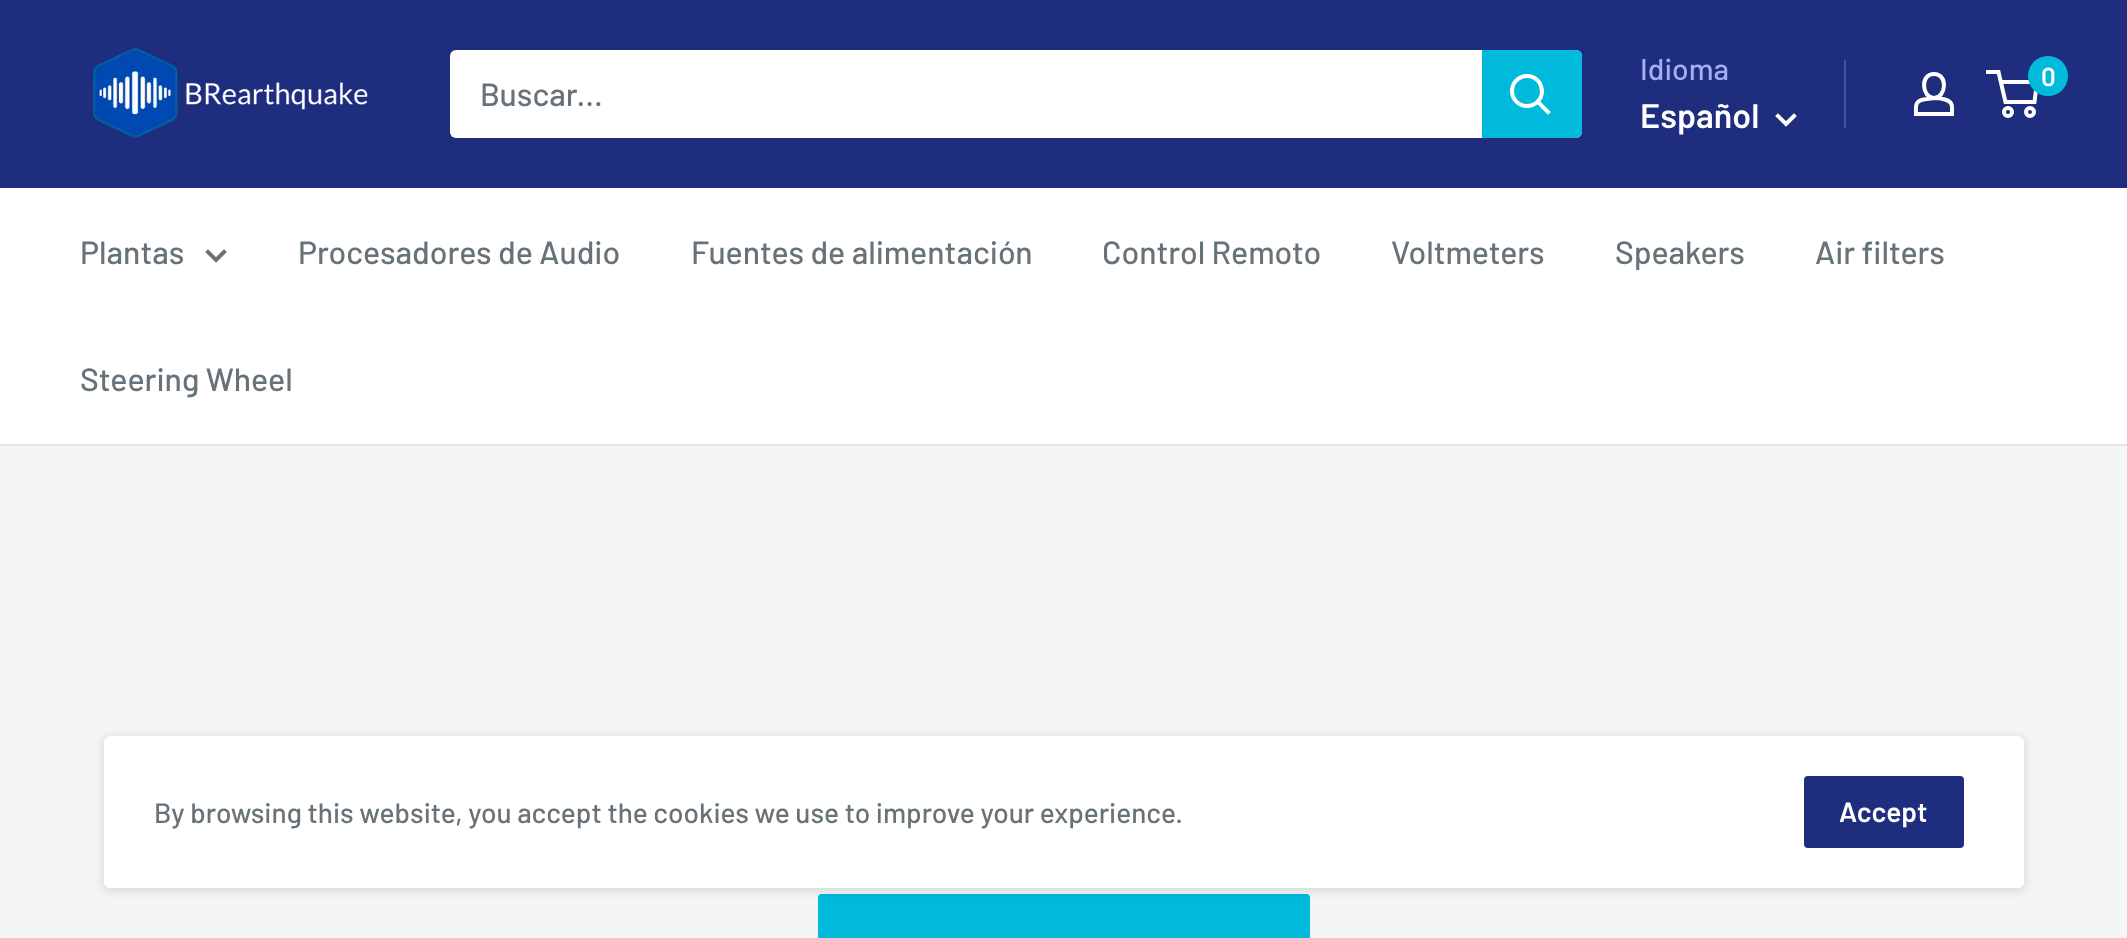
async function draw(canvas) {
  canvas.width = 2127
  canvas.height = 938
  const ctx = canvas.getContext('2d')
  ctx.miterLimit = 4
  ctx.fontKerning = 'normal'
  async function loadImage(src) {
    const img = new Image()
    img.src = src
    await img.decode()
    return img
  }

  ctx.fillStyle = '#f3f5f6'
  ctx.fillRect(0, 0, 2127, 938)
  ctx.fillStyle = '#1e2d7d'
  ctx.fillRect(0, 0, 2127, 188)
  ctx.drawImage(await loadImage('image0.png'), 92, 48, 276, 90)
  ctx.fillStyle = '#fff'
  ctx.beginPath()
  ctx.roundRect(450, 50, 1132, 88, 6)
  ctx.fill()
  ctx.font = '500 32px Barlow'
  ctx.fillStyle = '#677279'
  ctx.fillText('Buscar...', 480, 106)
  ctx.fillStyle = '#00badb'
  ctx.beginPath()
  ctx.roundRect(1482, 50, 100, 88, [0, 6, 6, 0])
  ctx.fill()
  ctx.beginPath()
  ctx.moveTo(1548, 112)
  ctx.lineTo(1538, 102)
  ctx.strokeStyle = '#fff'
  ctx.lineWidth = 4
  ctx.lineCap = 'square'
  ctx.stroke()
  ctx.beginPath()
  ctx.arc(1527, 91, 15, 0, 2 * Math.PI)
  ctx.stroke()
  ctx.font = '500 30px Barlow'
  ctx.fillStyle = '#a3afef'
  ctx.fillText('Idioma', 1640, 80)
  ctx.font = '600 34px Barlow'
  ctx.fillStyle = '#fff'
  ctx.fillText('Español', 1640, 128)
  ctx.beginPath()
  ctx.moveTo(1794, 116)
  ctx.lineTo(1786, 124)
  ctx.lineTo(1778, 116)
  ctx.stroke()
  ctx.fillStyle = '#46549f'
  ctx.fillRect(1844, 60, 2, 68)
  ctx.beginPath()
  ctx.moveTo(1934, 98)
  ctx.bezierCurveTo(1938, 98, 1941.5, 98.5, 1945, 99.5)
  ctx.bezierCurveTo(1953.5, 102, 1952, 106.5, 1952, 114)
  ctx.lineTo(1916, 114)
  ctx.bezierCurveTo(1916, 106, 1914.5, 101.5, 1923.5, 99.5)
  ctx.closePath()
  ctx.moveTo(1934, 98)
  ctx.bezierCurveTo(1922, 98, 1919.5, 74, 1934, 74)
  ctx.bezierCurveTo(1948.5, 74, 1946, 98, 1934, 98)
  ctx.closePath()
  ctx.lineCap = 'butt'
  ctx.stroke()
  ctx.beginPath()
  ctx.arc(2008, 112, 4, 0, 2 * Math.PI)
  ctx.stroke()
  ctx.beginPath()
  ctx.arc(2030, 112, 4, 0, 2 * Math.PI)
  ctx.stroke()
  ctx.beginPath()
  ctx.moveTo(2000.5, 82)
  ctx.lineTo(2037, 82)
  ctx.lineTo(2034.5, 102)
  ctx.lineTo(2005.5, 102)
  ctx.lineTo(1998.5, 72)
  ctx.lineTo(1986, 72)
  ctx.stroke()
  ctx.fillStyle = '#00badb'
  ctx.beginPath()
  ctx.arc(2048, 76, 20, 0, 2 * Math.PI)
  ctx.fill()
  ctx.font = '600 26px Barlow'
  ctx.fillStyle = '#fff'
  ctx.fillText('0', 2041, 86)
  ctx.fillRect(0, 188, 2127, 256)
  ctx.fillStyle = '#e1e3e4'
  ctx.fillRect(0, 444, 2127, 2)
  ctx.font = '500 32px Barlow'
  ctx.fillStyle = '#677279'
  ctx.fillText('Plantas', 80, 264)
  ctx.beginPath()
  ctx.moveTo(224, 252)
  ctx.lineTo(216, 260)
  ctx.lineTo(208, 252)
  ctx.strokeStyle = '#677279'
  ctx.lineCap = 'square'
  ctx.stroke()
  ctx.fillText('Procesadores de Audio', 298, 264)
  ctx.fillText('Fuentes de alimentación', 691, 264)
  ctx.fillText('Control Remoto', 1102, 264)
  ctx.fillText('Voltmeters', 1391, 264)
  ctx.fillText('Speakers', 1615, 264)
  ctx.fillText('Air filters', 1815, 264)
  ctx.fillText('Steering Wheel', 80, 391)
  ctx.fillStyle = '#00badb'
  ctx.beginPath()
  ctx.roundRect(818, 894, 492, 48, 4)
  ctx.fill()
  ctx.fillStyle = '#0000001a'
  ctx.filter = 'blur(4px)'
  ctx.beginPath()
  ctx.roundRect(102, 736, 1924, 156, 8)
  ctx.fill()
  ctx.filter = 'none'
  ctx.fillStyle = '#fff'
  ctx.beginPath()
  ctx.roundRect(104, 736, 1920, 152, 6)
  ctx.fill()
  ctx.font = '500 28px Barlow'
  ctx.fillStyle = '#677279'
  ctx.fillText('By browsing this website, you accept the cookies we use to improve your experience.', 154, 823)
  ctx.fillStyle = '#1e2d7d'
  ctx.beginPath()
  ctx.roundRect(1804, 776, 160, 72, 4)
  ctx.fill()
  ctx.font = '600 28px Barlow'
  ctx.fillStyle = '#fff'
  ctx.fillText('Accept', 1839, 822)
}

draw(document.querySelector('canvas'))
